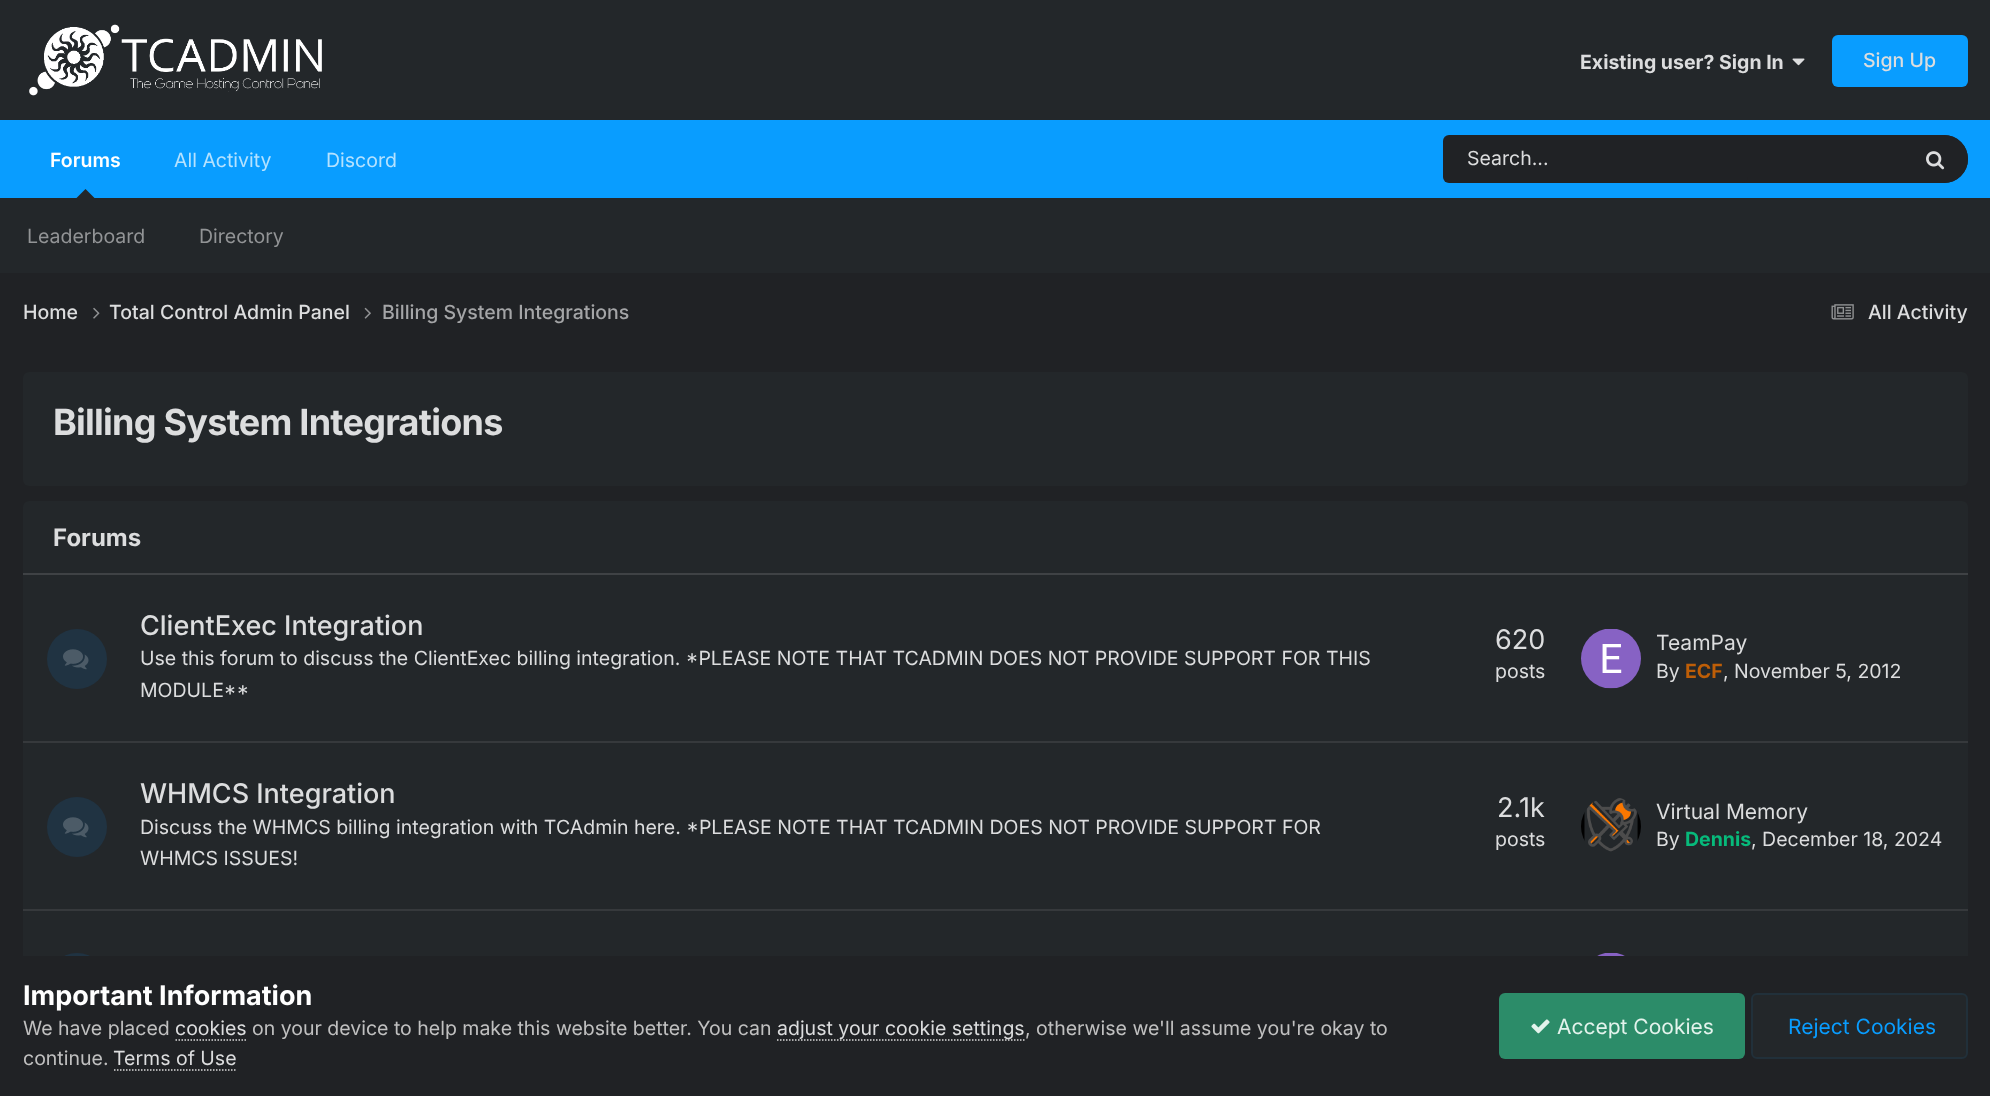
async function draw(canvas) {
  canvas.width = 1990
  canvas.height = 1096
  const ctx = canvas.getContext('2d')
  ctx.miterLimit = 4
  ctx.fontKerning = 'normal'
  async function loadImage(src) {
    const img = new Image()
    img.src = src
    await img.decode()
    return img
  }

  ctx.fillStyle = '#202225'
  ctx.fillRect(0, 0, 1990, 1096)
  ctx.fillStyle = '#23272a'
  ctx.fillRect(0, 0, 1990, 120)
  ctx.drawImage(await loadImage('image0.png'), 29, 24, 293, 72)
  ctx.font = 'bold 19.5px Inter'
  ctx.fillStyle = '#dcddde'
  ctx.fillText('Existing user? Sign In', 1580, 69)
  ctx.drawImage(await loadImage('image1.png'), 1792, 58, 13, 8)
  ctx.fillStyle = '#099dff'
  ctx.beginPath()
  ctx.roundRect(1832, 35, 136, 52, 6)
  ctx.fill()
  ctx.font = '500 19.5px Inter'
  ctx.fillStyle = '#dcddde'
  ctx.fillText('Sign Up', 1863, 67)
  ctx.fillStyle = '#099dff'
  ctx.fillRect(0, 120, 1990, 78)
  ctx.font = '600 19.5px Inter'
  ctx.fillStyle = '#fff'
  ctx.fillText('Forums', 50, 167)
  ctx.fillStyle = '#23272a'
  ctx.beginPath()
  ctx.moveTo(94.5, 198)
  ctx.lineTo(76.5, 198)
  ctx.lineTo(85.5, 189)
  ctx.closePath()
  ctx.fill()
  ctx.fillRect(0, 198, 1990, 75)
  ctx.font = '19.5px Inter'
  ctx.fillStyle = '#929496'
  ctx.fillText('Leaderboard', 27, 243)
  ctx.fillText('Directory', 199, 243)
  ctx.fillStyle = '#b5e2ff'
  ctx.fillText('All Activity', 174, 167)
  ctx.fillText('Discord', 326, 167)
  ctx.fillStyle = '#202225'
  ctx.beginPath()
  ctx.roundRect(1443, 135, 525, 48, 24)
  ctx.fill()
  ctx.beginPath()
  ctx.roundRect(1443, 135, 305, 48, 6)
  ctx.fill()
  ctx.fillStyle = '#dcddde'
  ctx.fillText('Search...', 1467, 165)
  ctx.fillStyle = '#202225'
  ctx.beginPath()
  ctx.roundRect(1902, 135, 66, 48, [0, 24, 24, 0])
  ctx.fill()
  ctx.drawImage(await loadImage('image2.png'), 1926, 151, 19, 19)
  ctx.font = '500 19.5px Inter'
  ctx.fillStyle = '#dcddde'
  ctx.fillText('Home', 23, 319)
  ctx.drawImage(await loadImage('image3.png'), 93, 307, 7, 12)
  ctx.fillText('Total Control Admin Panel', 109, 319)
  ctx.drawImage(await loadImage('image4.png'), 364, 307, 7, 12)
  ctx.fillStyle = '#a4a5a7'
  ctx.fillText('Billing System Integrations', 382, 319)
  ctx.drawImage(await loadImage('image5.png'), 1831, 304, 23, 16)
  ctx.fillStyle = '#dcddde'
  ctx.fillText('All Activity', 1868, 319)
  ctx.fillStyle = '#23272a'
  ctx.beginPath()
  ctx.roundRect(23, 372, 1945, 114, 6)
  ctx.fill()
  ctx.letterSpacing = '-0.75px'
  ctx.font = 'bold 36px Inter'
  ctx.fillStyle = '#dcddde'
  ctx.fillText('Billing System Integrations', 53, 435)
  ctx.fillStyle = '#23272a'
  ctx.beginPath()
  ctx.roundRect(23, 501, 1945, 554, 6)
  ctx.fill()
  ctx.fillStyle = '#3f4245'
  ctx.fillRect(23, 573, 1945, 2)
  ctx.letterSpacing = '0px'
  ctx.font = 'bold 24px Inter'
  ctx.fillStyle = '#dcddde'
  ctx.fillText('Forums', 53, 546)
  ctx.fillStyle = '#36393c'
  ctx.fillRect(23, 741, 1945, 2)
  ctx.fillStyle = '#203342'
  ctx.beginPath()
  ctx.arc(77, 659, 30, 0, 2 * Math.PI)
  ctx.fill()
  ctx.drawImage(await loadImage('image6.png'), 63, 649, 26, 21)
  ctx.font = '500 27px Inter'
  ctx.fillStyle = '#dcddde'
  ctx.fillText('ClientExec Integration', 140, 635)
  ctx.font = '19.5px Inter'
  ctx.fillText('Use this forum to discuss the ClientExec billing integration. *PLEASE NOTE THAT TCADMIN DOES NOT PROVIDE SUPPORT FOR THIS', 140, 665)
  ctx.fillText('MODULE**', 140, 697)
  ctx.font = '27px Inter'
  ctx.fillText('620', 1495, 649)
  ctx.font = '19.5px Inter'
  ctx.fillText('posts', 1495, 678)
  ctx.drawImage(await loadImage('image7.png'), 1581, 629, 60, 60)
  ctx.font = '21px Inter'
  ctx.fillText('TeamPay', 1656, 650)
  ctx.font = '19.5px Inter'
  ctx.fillText('By', 1656, 678)
  ctx.font = 'bold 19.5px Inter'
  ctx.fillStyle = '#be5e07'
  ctx.fillText('ECF', 1685, 678)
  ctx.font = '19.5px Inter'
  ctx.fillStyle = '#dcddde'
  ctx.fillText(', November 5, 2012', 1723, 678)
  ctx.fillStyle = '#36393c'
  ctx.fillRect(23, 909, 1945, 2)
  ctx.fillStyle = '#203342'
  ctx.beginPath()
  ctx.arc(77, 827, 30, 0, 2 * Math.PI)
  ctx.fill()
  ctx.drawImage(await loadImage('image6.png'), 63, 817, 26, 21)
  ctx.font = '500 27px Inter'
  ctx.fillStyle = '#dcddde'
  ctx.fillText('WHMCS Integration', 140, 803)
  ctx.font = '19.5px Inter'
  ctx.fillText('Discuss the WHMCS billing integration with TCAdmin here. *PLEASE NOTE THAT TCADMIN DOES NOT PROVIDE SUPPORT FOR', 140, 834)
  ctx.fillText('WHMCS ISSUES!', 140, 865)
  ctx.font = '27px Inter'
  ctx.fillText('2.1k', 1497, 817)
  ctx.font = '19.5px Inter'
  ctx.fillText('posts', 1495, 846)
  ctx.drawImage(await loadImage('image8.png'), 1581, 798, 60, 54)
  ctx.font = '21px Inter'
  ctx.fillText('Virtual Memory', 1656, 819)
  ctx.font = '19.5px Inter'
  ctx.fillText('By', 1656, 846)
  ctx.font = 'bold 19.5px Inter'
  ctx.fillStyle = '#07ba7b'
  ctx.fillText('Dennis', 1685, 846)
  ctx.font = '19.5px Inter'
  ctx.fillStyle = '#dcddde'
  ctx.fillText(', December 18, 2024', 1751, 846)
  ctx.fillStyle = '#203342'
  ctx.beginPath()
  ctx.arc(77, 983, 30, 0, 2 * Math.PI)
  ctx.fill()
  ctx.drawImage(await loadImage('image9.png'), 1597, 953, 28, 3)
  ctx.fillStyle = '#202225'
  ctx.fillRect(23, 956, 1945, 99)
  ctx.font = 'bold 27px Inter'
  ctx.fillStyle = '#fff'
  ctx.fillText('Important Information', 23, 1005)
  ctx.font = '19.5px Inter'
  ctx.fillStyle = '#c0c0c0'
  ctx.fillText('We have placed', 23, 1035)
  ctx.fillStyle = '#dcddde'
  ctx.fillText('cookies', 175, 1035)
  ctx.beginPath()
  ctx.moveTo(175.5, 1040)
  ctx.lineTo(246, 1040)
  ctx.strokeStyle = '#dadada'
  ctx.lineWidth = 1.5
  ctx.setLineDash([1.5, 1.5])
  ctx.stroke()
  ctx.fillStyle = '#c0c0c0'
  ctx.fillText('on your device to help make this website better. You can', 252, 1035)
  ctx.beginPath()
  ctx.moveTo(777, 1040)
  ctx.lineTo(1024.5, 1040)
  ctx.stroke()
  ctx.fillStyle = '#dcddde'
  ctx.fillText('adjust your cookie settings', 777, 1035)
  ctx.fillStyle = '#c0c0c0'
  ctx.fillText(', otherwise we\'ll assume you\'re okay to', 1025, 1035)
  ctx.fillText('continue.', 23, 1065)
  ctx.fillStyle = '#dcddde'
  ctx.fillText('Terms of Use', 113, 1065)
  ctx.beginPath()
  ctx.moveTo(114, 1070)
  ctx.lineTo(237, 1070)
  ctx.stroke()
  ctx.fillStyle = '#2c8c69'
  ctx.beginPath()
  ctx.roundRect(1499, 993, 246, 66, 6)
  ctx.fill()
  ctx.drawImage(await loadImage('image10.png'), 1531, 1019, 19, 15)
  ctx.font = '21px Inter'
  ctx.fillStyle = '#e3f3ec'
  ctx.fillText('Accept Cookies', 1557, 1034)
  ctx.fillStyle = '#23272a'
  ctx.beginPath()
  ctx.roundRect(1752, 994, 215, 64, 5)
  ctx.fill()
  ctx.strokeStyle = '#21303a'
  ctx.lineWidth = 2
  ctx.setLineDash([])
  ctx.stroke()
  ctx.fillStyle = '#099dff'
  ctx.fillText('Reject Cookies', 1788, 1034)
}

draw(document.querySelector('canvas'))
